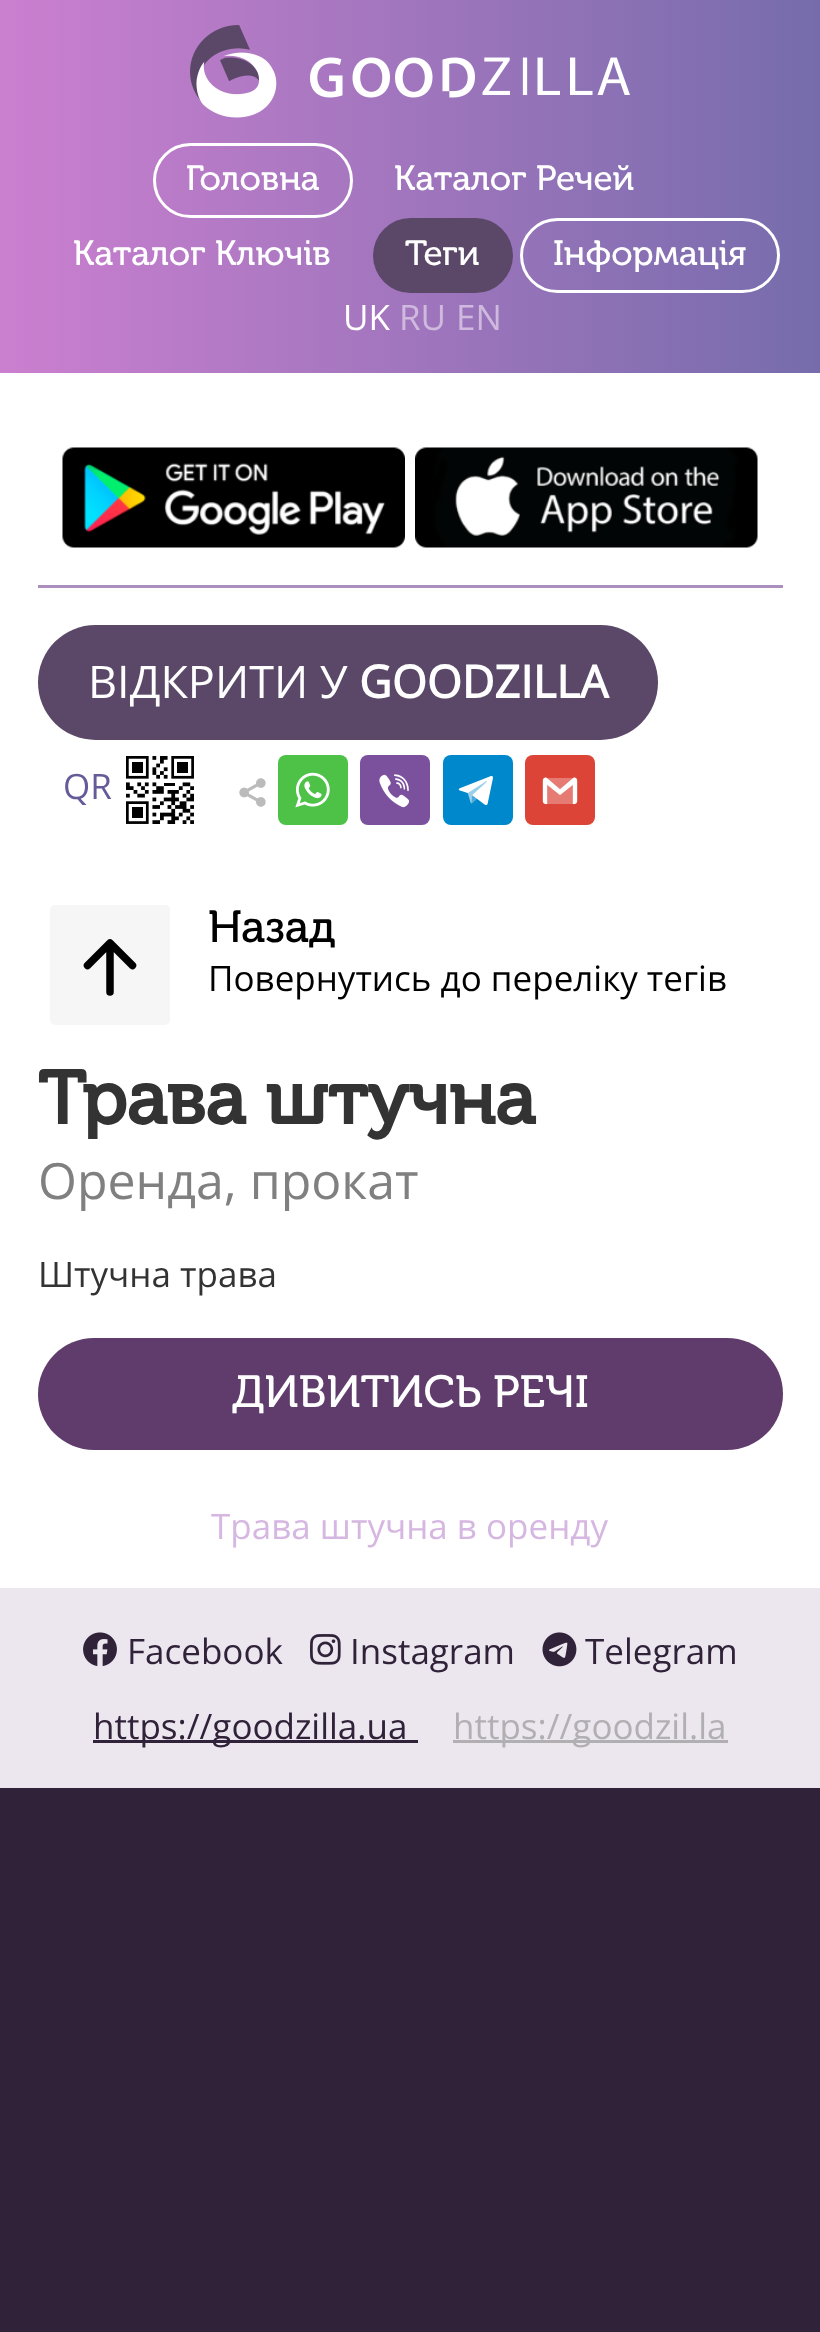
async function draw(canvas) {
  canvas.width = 820
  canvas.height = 2332
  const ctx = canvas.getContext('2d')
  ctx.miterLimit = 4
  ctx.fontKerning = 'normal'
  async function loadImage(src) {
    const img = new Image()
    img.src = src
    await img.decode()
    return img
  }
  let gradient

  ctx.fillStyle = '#302239'
  ctx.fillRect(0, 0, 820, 2332)
  gradient = ctx.createLinearGradient(0, 186, 820, 186)
  gradient.addColorStop(0, '#cb7fcf')
  gradient.addColorStop(1, '#766cac')
  ctx.fillStyle = gradient
  ctx.fillRect(0, 0, 820, 373)
  ctx.drawImage(await loadImage('image0.png'), 190, 25, 440, 93)
  ctx.beginPath()
  ctx.roundRect(154.5, 144.5, 197, 72, 36)
  ctx.strokeStyle = '#fff'
  ctx.lineWidth = 3
  ctx.stroke()
  ctx.font = '35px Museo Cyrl'
  ctx.fillStyle = '#fff'
  ctx.fillText('Головна', 186, 190)
  ctx.fillText('Каталог Речей', 394, 190)
  ctx.fillText('Каталог Ключів', 73, 265)
  ctx.fillStyle = '#5b4868'
  ctx.beginPath()
  ctx.roundRect(373, 218, 140, 75, 37.5)
  ctx.fill()
  ctx.fillStyle = '#fff'
  ctx.fillText('Теги', 405, 265)
  ctx.beginPath()
  ctx.roundRect(521.5, 219.5, 257, 72, 36)
  ctx.stroke()
  ctx.fillText('Інформація', 553, 265)
  ctx.font = '35px Open Sans'
  ctx.fillText('UK', 343, 330)
  ctx.fillStyle = '#cfbade'
  ctx.fillText('RU', 399, 330)
  ctx.fillText('EN', 456, 330)
  ctx.fillStyle = '#fff'
  ctx.fillRect(0, 373, 820, 1215)
  ctx.fillStyle = '#ab8fbf'
  ctx.fillRect(38, 585, 745, 3)
  ctx.drawImage(await loadImage('image1.png'), 62, 447, 343, 101)
  ctx.drawImage(await loadImage('image2.png'), 415, 447, 343, 101)
  ctx.fillStyle = '#5b4868'
  ctx.beginPath()
  ctx.roundRect(38, 625, 620, 115, 57.5)
  ctx.fill()
  ctx.font = '45px Open Sans'
  ctx.fillStyle = '#fff'
  ctx.fillText('ВІДКРИТИ У', 88, 698)
  ctx.font = 'bold 45px Open Sans'
  ctx.fillText('GOODZILLA', 359, 698)
  ctx.font = '35px Open Sans'
  ctx.fillStyle = '#655b98'
  ctx.fillText('QR', 63, 799)
  ctx.drawImage(await loadImage('image3.png'), 126, 756, 68, 68)
  ctx.drawImage(await loadImage('image4.png'), 239, 778, 27, 29)
  ctx.fillStyle = '#4dc247'
  ctx.beginPath()
  ctx.roundRect(278, 755, 70, 70, 8)
  ctx.fill()
  ctx.drawImage(await loadImage('image5.png'), 295, 772, 35, 36)
  ctx.fillStyle = '#7b519d'
  ctx.beginPath()
  ctx.roundRect(360, 755, 70, 70, 8)
  ctx.fill()
  ctx.drawImage(await loadImage('image6.png'), 379, 774, 31, 34)
  ctx.fillStyle = '#08c'
  ctx.beginPath()
  ctx.roundRect(443, 755, 70, 70, 8)
  ctx.fill()
  ctx.drawImage(await loadImage('image7.png'), 458, 776, 35, 30)
  ctx.fillStyle = '#db4437'
  ctx.beginPath()
  ctx.roundRect(525, 755, 70, 70, 8)
  ctx.fill()
  ctx.drawImage(await loadImage('image8.png'), 542, 777, 36, 28)
  ctx.fillStyle = '#f6f6f6'
  ctx.beginPath()
  ctx.roundRect(50, 905, 120, 120, 5)
  ctx.fill()
  ctx.beginPath()
  ctx.moveTo(87.5, 965.5)
  ctx.lineTo(110, 943)
  ctx.lineTo(132.5, 965.5)
  ctx.moveTo(110, 946)
  ctx.lineTo(110, 992)
  ctx.strokeStyle = '#000'
  ctx.lineWidth = 7.5
  ctx.lineCap = 'round'
  ctx.lineJoin = 'round'
  ctx.stroke()
  ctx.font = '45px Museo Cyrl'
  ctx.fillStyle = '#000'
  ctx.fillText('Назад', 208, 942)
  ctx.font = '35px Open Sans'
  ctx.fillText('Повернутись до переліку тегів', 208, 991)
  ctx.font = 'bold 75px Museo Cyrl'
  ctx.fillStyle = '#333'
  ctx.fillText('Трава штучна', 38, 1124)
  ctx.font = '50px Open Sans'
  ctx.fillStyle = '#808080'
  ctx.fillText('Оренда, прокат', 38, 1199)
  ctx.font = '35px Open Sans'
  ctx.fillStyle = '#333'
  ctx.fillText('Штучна трава', 38, 1287)
  ctx.fillStyle = '#5f3c6b'
  ctx.beginPath()
  ctx.roundRect(38, 1338, 745, 112, 56)
  ctx.fill()
  ctx.font = '45px Museo Cyrl'
  ctx.fillStyle = '#fff'
  ctx.fillText('ДИВИТИСЬ РЕЧІ', 232, 1407)
  ctx.font = '35px Open Sans'
  ctx.fillStyle = '#d6b7e1'
  ctx.fillText('Трава штучна в оренду', 211, 1539)
  ctx.fillStyle = '#ece7ef'
  ctx.fillRect(0, 1588, 820, 200)
  ctx.drawImage(await loadImage('image9.png'), 83, 1632, 34, 35)
  ctx.fillStyle = '#302239'
  ctx.fillText('Facebook', 127, 1664)
  ctx.drawImage(await loadImage('image10.png'), 310, 1634, 31, 31)
  ctx.fillText('Instagram', 350, 1664)
  ctx.drawImage(await loadImage('image11.png'), 542, 1632, 35, 35)
  ctx.fillText('Telegram', 585, 1664)
  ctx.fillRect(93, 1740, 325, 3)
  ctx.fillText('https://goodzilla.ua', 93, 1739)
  ctx.fillStyle = '#b2afb3'
  ctx.fillRect(453, 1740, 275, 3)
  ctx.fillText('https://goodzil.la', 453, 1739)
}

draw(document.querySelector('canvas'))
